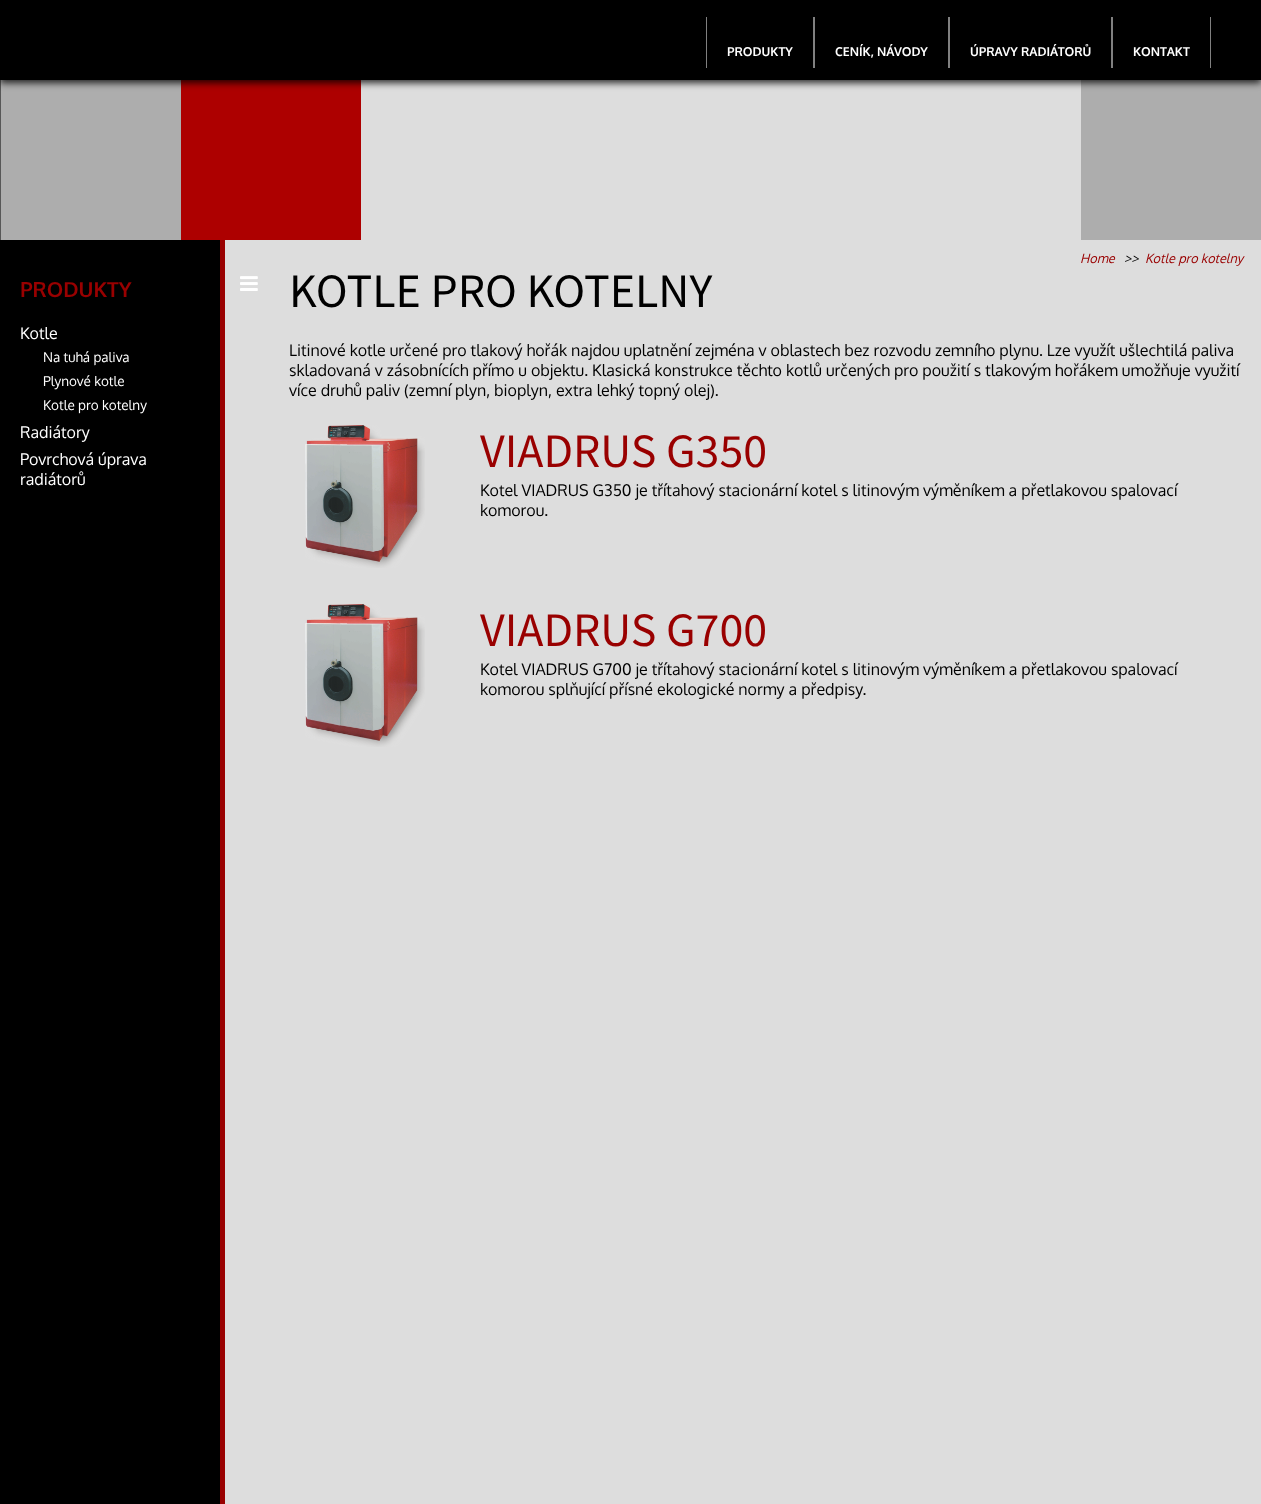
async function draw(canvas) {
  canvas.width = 1261
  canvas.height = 1504
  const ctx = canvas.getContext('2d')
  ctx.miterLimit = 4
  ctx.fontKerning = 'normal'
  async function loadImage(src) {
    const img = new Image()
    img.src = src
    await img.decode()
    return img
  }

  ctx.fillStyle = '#000'
  ctx.fillRect(0, 0, 1261, 1504)
  ctx.fillStyle = '#575757'
  ctx.fillRect(0, 80, 1, 160)
  ctx.fillStyle = '#adadad'
  ctx.fillRect(1, 80, 180, 160)
  ctx.fillStyle = '#ad0000'
  ctx.fillRect(181, 80, 180, 160)
  ctx.fillStyle = '#adadad'
  ctx.fillRect(1081, 80, 180, 160)
  ctx.fillStyle = '#ddd'
  ctx.fillRect(361, 80, 720, 160)
  ctx.fillStyle = '#000000cc'
  ctx.filter = 'blur(3.5px)'
  ctx.beginPath()
  ctx.rect(0, 3, 1261, 80)
  ctx.fill()
  ctx.filter = 'none'
  ctx.fillStyle = '#808080'
  ctx.fillRect(813, 17, 2, 51)
  ctx.fillRect(706, 17, 1, 51)
  ctx.font = 'bold 12.25px Oxygen'
  ctx.fillStyle = '#fff'
  ctx.fillText('PRODUKTY', 727, 56)
  ctx.fillStyle = '#808080'
  ctx.fillRect(948, 17, 2, 51)
  ctx.fillStyle = '#fff'
  ctx.fillText('CENÍK, NÁVODY', 835, 56)
  ctx.fillStyle = '#808080'
  ctx.fillRect(1111, 17, 2, 51)
  ctx.fillStyle = '#fff'
  ctx.fillText('ÚPRAVY RADIÁTORŮ', 970, 56)
  ctx.fillStyle = '#808080'
  ctx.fillRect(1210, 17, 1, 51)
  ctx.fillStyle = '#fff'
  ctx.fillText('KONTAKT', 1133, 56)
  ctx.font = 'bold 20.75px Oxygen'
  ctx.fillStyle = '#900'
  ctx.fillText('PRODUKTY', 20, 297)
  ctx.font = '16px Oxygen'
  ctx.fillStyle = '#fff'
  ctx.fillText('Kotle', 20, 339)
  ctx.font = '13.5px Oxygen'
  ctx.fillText('Na tuhá paliva', 43, 362)
  ctx.fillText('Plynové kotle', 43, 386)
  ctx.fillText('Kotle pro kotelny', 43, 410)
  ctx.font = '16px Oxygen'
  ctx.fillText('Radiátory', 20, 438)
  ctx.fillText('Povrchová úprava', 20, 465)
  ctx.fillText('radiátorů', 20, 485)
  ctx.fillStyle = '#ddd'
  ctx.fillRect(225, 240, 1036, 1264)
  ctx.drawImage(await loadImage('image0.png'), 240, 276, 18, 15)
  ctx.fillStyle = '#900'
  ctx.fillRect(220, 240, 5, 1264)
  ctx.font = 'italic 12.75px Oxygen'
  ctx.fillText('Home', 1080, 263)
  ctx.fillStyle = '#000'
  ctx.fillText('>>', 1124, 263)
  ctx.fillStyle = '#900'
  ctx.fillText('Kotle pro kotelny', 1145, 263)
  ctx.font = '48px Source Sans Pro'
  ctx.fillStyle = '#000'
  ctx.fillText('KOTLE PRO KOTELNY', 289, 307)
  ctx.font = '16px Oxygen'
  ctx.fillText('Litinové kotle určené pro tlakový hořák najdou uplatnění zejména v oblastech bez rozvodu zemního plynu. Lze využít ušlechtilá paliva', 289, 356)
  ctx.fillText('skladovaná v zásobnících přímo u objektu. Klasická konstrukce těchto kotlů určených pro použití s tlakovým hořákem umožňuje využití', 289, 376)
  ctx.fillText('více druhů paliv (zemní plyn, bioplyn, extra lehký topný olej).', 289, 396)
  ctx.drawImage(await loadImage('image1.png'), 305, 425, 120, 143)
  ctx.font = '48px Source Sans Pro'
  ctx.fillStyle = '#900'
  ctx.fillText('VIADRUS G350', 480, 467)
  ctx.font = '16px Oxygen'
  ctx.fillStyle = '#000'
  ctx.fillText('Kotel VIADRUS G350 je třítahový stacionární kotel s litinovým výměníkem a přetlakovou spalovací', 480, 496)
  ctx.fillText('komorou.', 480, 516)
  ctx.drawImage(await loadImage('image2.png'), 305, 604, 120, 143)
  ctx.font = '48px Source Sans Pro'
  ctx.fillStyle = '#900'
  ctx.fillText('VIADRUS G700', 480, 646)
  ctx.font = '16px Oxygen'
  ctx.fillStyle = '#000'
  ctx.fillText('Kotel VIADRUS G700 je třítahový stacionární kotel s litinovým výměníkem a přetlakovou spalovací', 480, 675)
  ctx.fillText('komorou splňující přísné ekologické normy a předpisy.', 480, 695)
}

draw(document.querySelector('canvas'))
